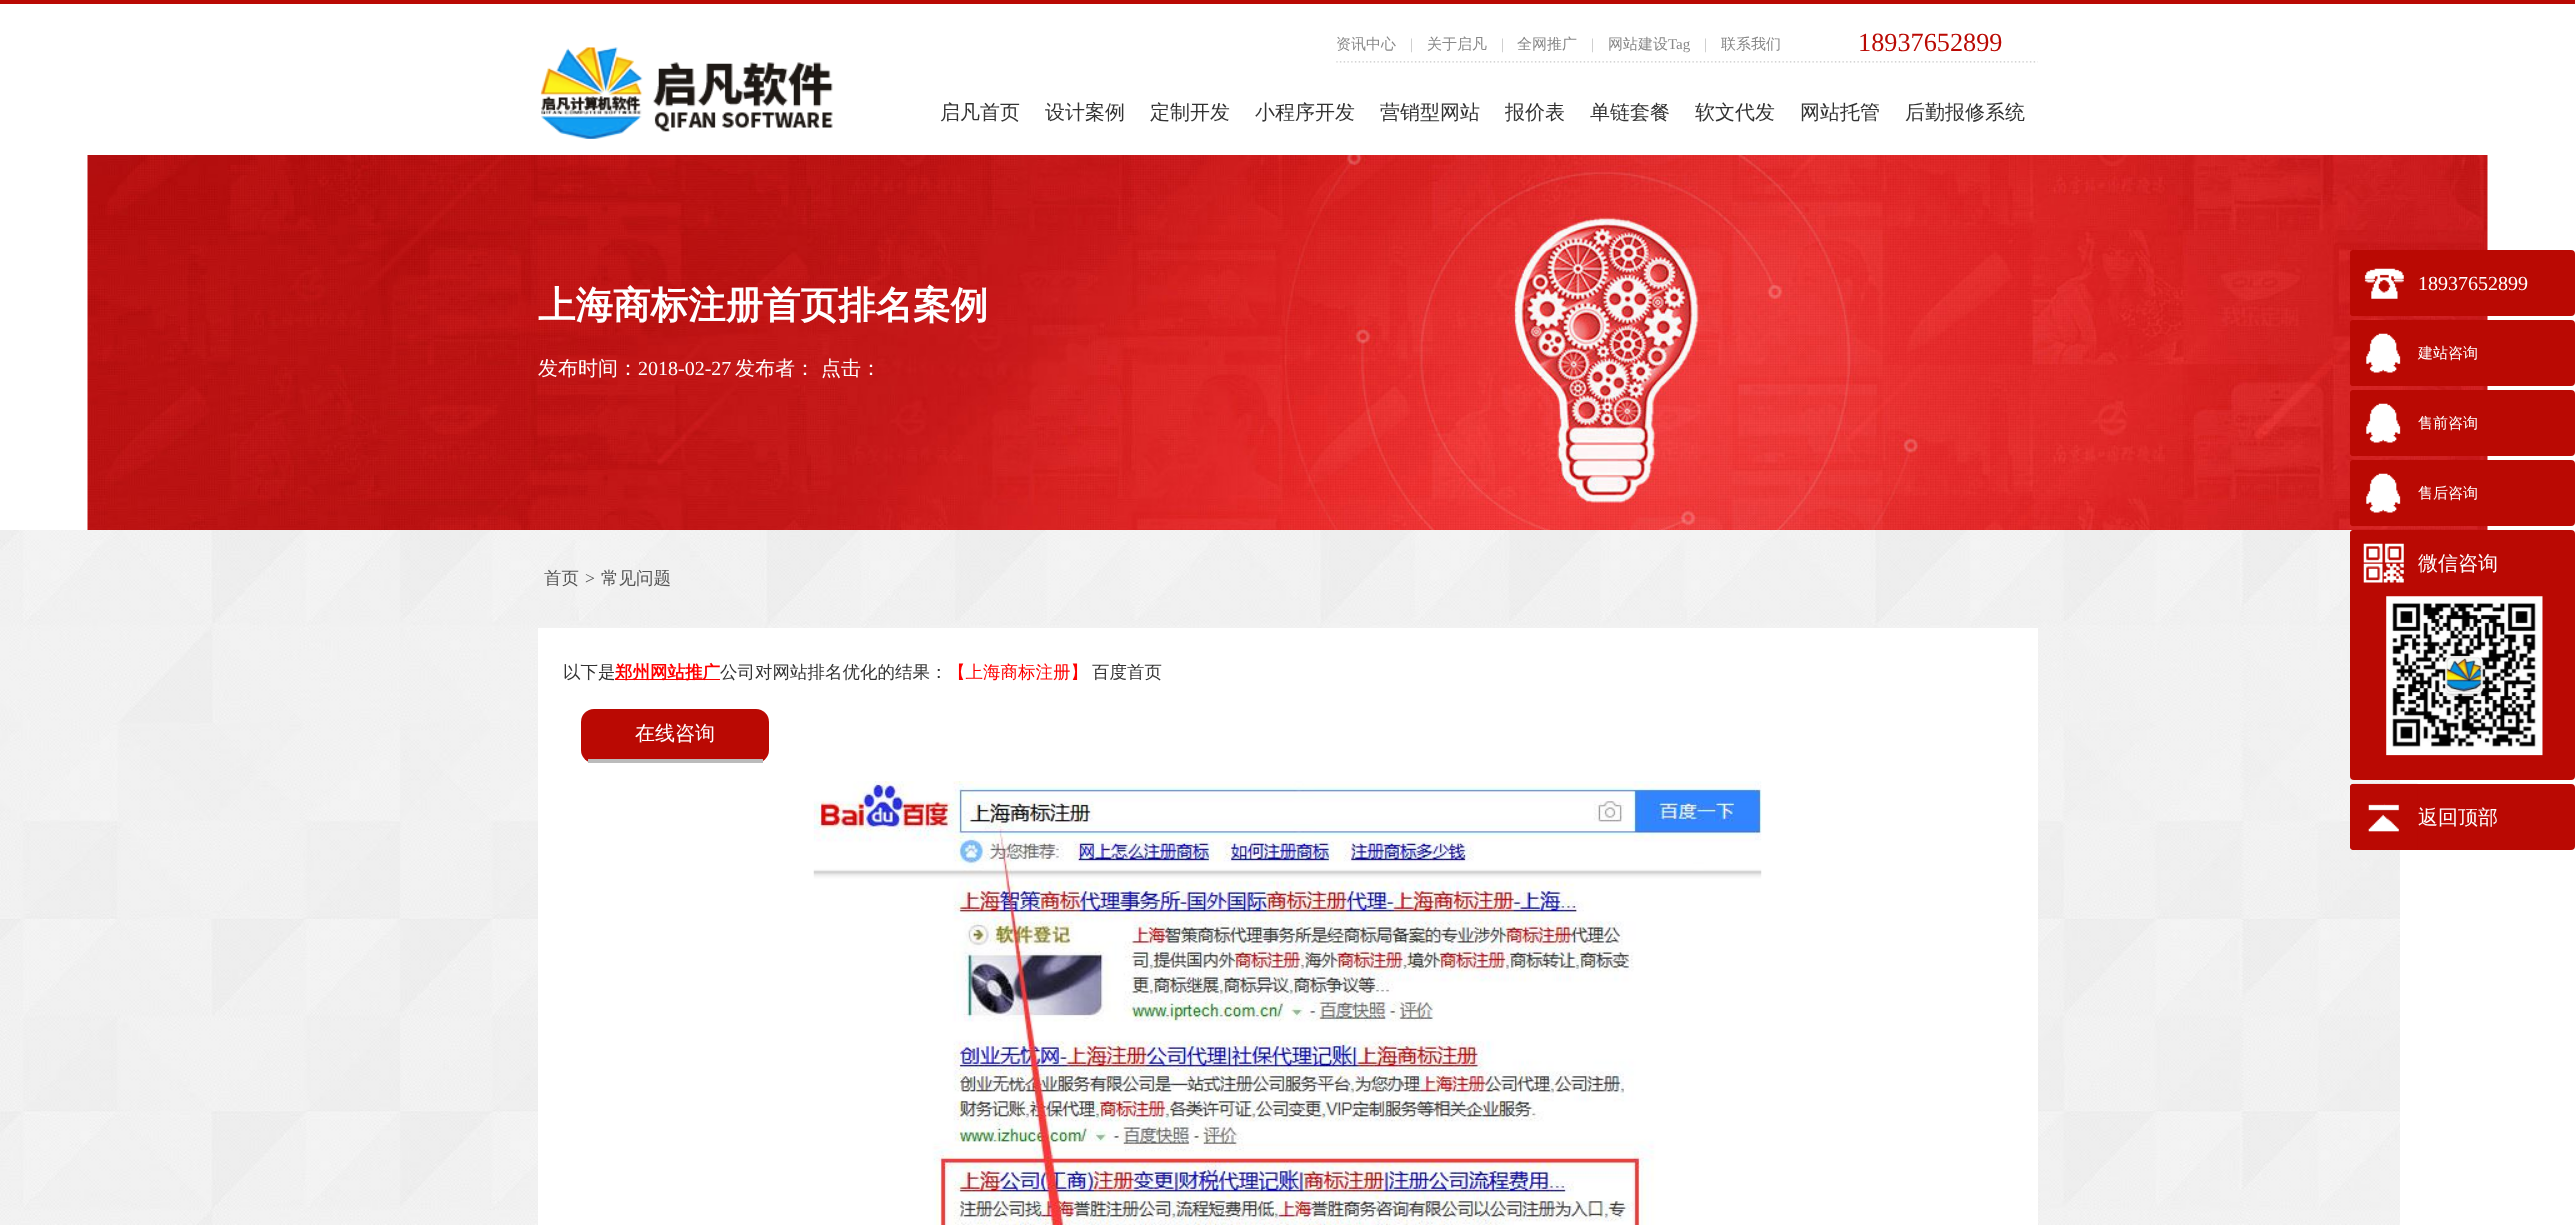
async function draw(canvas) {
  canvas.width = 2575
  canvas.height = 1225
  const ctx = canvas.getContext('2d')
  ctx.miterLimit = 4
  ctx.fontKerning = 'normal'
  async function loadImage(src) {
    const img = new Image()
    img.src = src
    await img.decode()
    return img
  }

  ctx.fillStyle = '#fff'
  ctx.fillRect(0, 0, 2575, 1225)
  ctx.fillStyle = '#ba0903'
  ctx.fillRect(0, 0, 2575, 4)
  ctx.drawImage(await loadImage('image0.png'), 540, 47, 293, 92)
  ctx.drawImage(await loadImage('image1.png'), 1336, 61, 702, 2)
  ctx.font = '500 15px WenQuanYi Zen Hei'
  ctx.fillStyle = '#888'
  ctx.fillText('资讯中心', 1336, 49)
  ctx.font = '15px Liberation Serif'
  ctx.fillStyle = '#c2c2c2'
  ctx.fillText('|', 1410, 49)
  ctx.font = '500 15px WenQuanYi Zen Hei'
  ctx.fillStyle = '#888'
  ctx.fillText('关于启凡', 1427, 49)
  ctx.font = '15px Liberation Serif'
  ctx.fillStyle = '#c2c2c2'
  ctx.fillText('|', 1501, 49)
  ctx.font = '500 15px WenQuanYi Zen Hei'
  ctx.fillStyle = '#888'
  ctx.fillText('全网推广', 1517, 49)
  ctx.font = '15px Liberation Serif'
  ctx.fillStyle = '#c2c2c2'
  ctx.fillText('|', 1591, 49)
  ctx.font = '500 15px WenQuanYi Zen Hei'
  ctx.fillStyle = '#888'
  ctx.fillText('网站建设', 1608, 49)
  ctx.font = '15px Liberation Serif'
  ctx.fillText('Tag', 1668, 49)
  ctx.fillStyle = '#c2c2c2'
  ctx.fillText('|', 1704, 49)
  ctx.font = '500 15px WenQuanYi Zen Hei'
  ctx.fillStyle = '#888'
  ctx.fillText('联系我们', 1721, 49)
  ctx.font = '26.25px Liberation Serif'
  ctx.fillStyle = '#ba0903'
  ctx.fillText('18937652899', 1858, 51)
  ctx.font = '500 20px WenQuanYi Zen Hei'
  ctx.fillStyle = '#333'
  ctx.fillText('启凡首页', 940, 119)
  ctx.fillText('设计案例', 1045, 119)
  ctx.fillText('定制开发', 1150, 119)
  ctx.fillText('小程序开发', 1255, 119)
  ctx.fillText('营销型网站', 1380, 119)
  ctx.fillText('报价表', 1505, 119)
  ctx.fillText('单链套餐', 1590, 119)
  ctx.fillText('软文代发', 1695, 119)
  ctx.fillText('网站托管', 1800, 119)
  ctx.fillText('后勤报修系统', 1905, 119)
  ctx.drawImage(await loadImage('image2.png'), 87, 155, 2401, 375)
  ctx.font = 'bold 37.5px WenQuanYi Zen Hei'
  ctx.fillStyle = '#fff'
  ctx.fillText('上海商标注册首页排名案例', 538, 318)
  ctx.font = '500 20px WenQuanYi Zen Hei'
  ctx.fillText('发布时间：', 538, 375)
  ctx.font = '20px Liberation Serif'
  ctx.fillText('2018-02-27', 638, 375)
  ctx.font = '500 20px WenQuanYi Zen Hei'
  ctx.fillText('发布者： 点击：', 735, 375)
  ctx.fillStyle = '#ba0903'
  ctx.beginPath()
  ctx.roundRect(2350, 250, 225, 66, 4)
  ctx.fill()
  ctx.drawImage(await loadImage('image3.png'), 2350, 250, 54, 66)
  ctx.font = '20px Liberation Serif'
  ctx.fillStyle = '#fff'
  ctx.fillText('18937652899', 2418, 290)
  ctx.fillStyle = '#ba0903'
  ctx.beginPath()
  ctx.roundRect(2350, 320, 225, 66, 4)
  ctx.fill()
  ctx.drawImage(await loadImage('image4.png'), 2350, 320, 51, 66)
  ctx.font = '500 15px WenQuanYi Zen Hei'
  ctx.fillStyle = '#fff'
  ctx.fillText('建站咨询', 2418, 358)
  ctx.fillStyle = '#ba0903'
  ctx.beginPath()
  ctx.roundRect(2350, 390, 225, 66, 4)
  ctx.fill()
  ctx.drawImage(await loadImage('image5.png'), 2350, 390, 51, 66)
  ctx.fillStyle = '#fff'
  ctx.fillText('售前咨询', 2418, 428)
  ctx.fillStyle = '#ba0903'
  ctx.beginPath()
  ctx.roundRect(2350, 460, 225, 66, 4)
  ctx.fill()
  ctx.drawImage(await loadImage('image6.png'), 2350, 460, 51, 66)
  ctx.fillStyle = '#fff'
  ctx.fillText('售后咨询', 2418, 498)
  ctx.drawImage(await loadImage('image10.png'), 0, 530, 2400, 695)
  ctx.fillStyle = '#ba0903'
  ctx.beginPath()
  ctx.roundRect(2350, 530, 225, 250, 4)
  ctx.fill()
  ctx.drawImage(await loadImage('image7.png'), 2350, 530, 54, 53)
  ctx.font = '500 20px WenQuanYi Zen Hei'
  ctx.fillStyle = '#fff'
  ctx.fillText('微信咨询', 2418, 570)
  ctx.drawImage(await loadImage('image8.png'), 2386, 596, 157, 160)
  ctx.fillStyle = '#ba0903'
  ctx.beginPath()
  ctx.roundRect(2350, 784, 225, 66, 4)
  ctx.fill()
  ctx.drawImage(await loadImage('image9.png'), 2350, 783, 68, 67)
  ctx.fillStyle = '#fff'
  ctx.fillText('返回顶部', 2418, 824)
  ctx.font = '500 17.5px WenQuanYi Zen Hei'
  ctx.fillStyle = '#545454'
  ctx.fillText('首页', 544, 584)
  ctx.font = '17.5px Liberation Serif'
  ctx.fillText('>', 585, 584)
  ctx.font = '500 17.5px WenQuanYi Zen Hei'
  ctx.fillText('常见问题', 601, 584)
  ctx.fillStyle = '#fff'
  ctx.fillRect(538, 628, 1500, 597)
  ctx.fillStyle = '#333'
  ctx.fillText('以下是', 563, 678)
  ctx.fillStyle = '#f00'
  ctx.fillRect(615, 679, 105, 1)
  ctx.font = 'bold 17.5px WenQuanYi Zen Hei'
  ctx.fillText('郑州网站推广', 615, 678)
  ctx.font = '500 17.5px WenQuanYi Zen Hei'
  ctx.fillStyle = '#333'
  ctx.fillText('公司对网站排名优化的结果：', 720, 678)
  ctx.fillStyle = '#f00'
  ctx.fillText('【上海商标注册】', 948, 678)
  ctx.fillStyle = '#333'
  ctx.fillText('百度首页', 1092, 678)
  ctx.fillStyle = '#ba0903'
  ctx.beginPath()
  ctx.roundRect(581, 709, 188, 54, 13)
  ctx.fill()
  ctx.fillStyle = '#bbb'
  ctx.fillRect(588, 759, 175, 4)
  ctx.font = '500 20px WenQuanYi Zen Hei'
  ctx.fillStyle = '#fff'
  ctx.fillText('在线咨询', 635, 740)
  ctx.drawImage(await loadImage('image11.png'), 813, 781, 949, 444)
}

draw(document.querySelector('canvas'))
